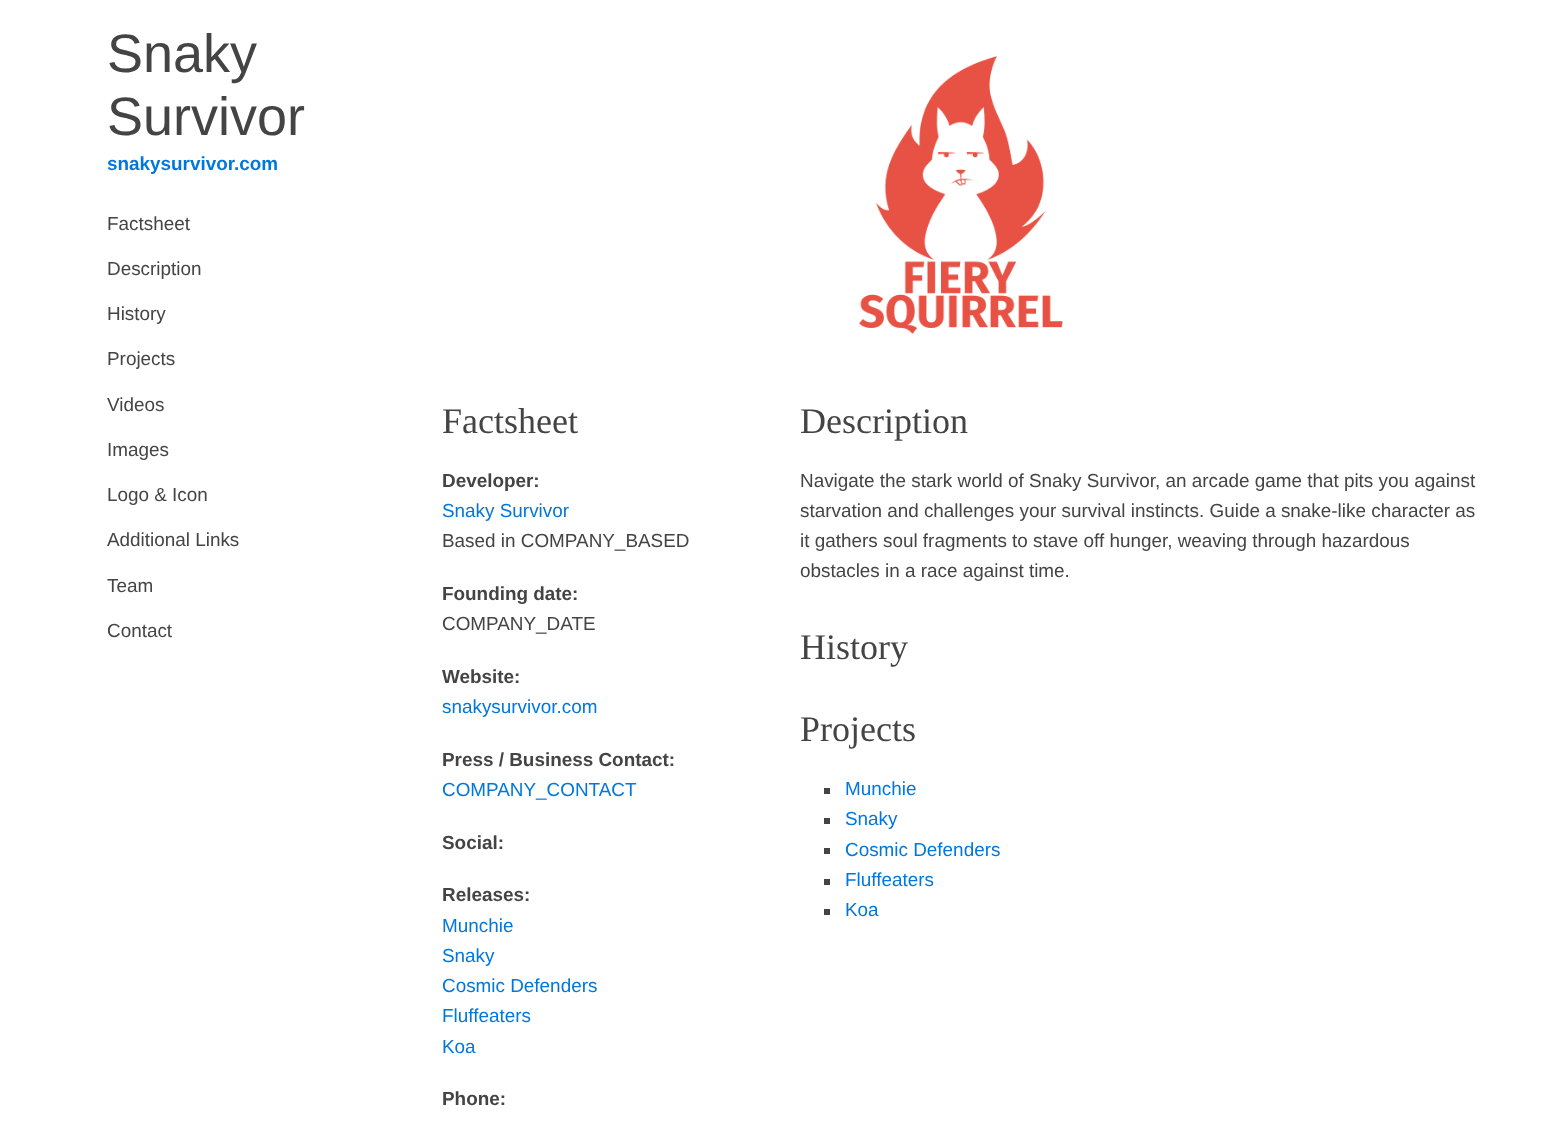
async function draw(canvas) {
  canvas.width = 1562
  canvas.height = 1124
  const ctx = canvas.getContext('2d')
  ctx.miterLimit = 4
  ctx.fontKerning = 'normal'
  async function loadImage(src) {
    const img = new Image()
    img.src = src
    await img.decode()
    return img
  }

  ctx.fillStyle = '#fff'
  ctx.fillRect(0, 0, 1562, 1124)
  ctx.font = '54px Liberation Sans'
  ctx.fillStyle = '#444'
  ctx.fillText('Snaky', 107, 72)
  ctx.fillText('Survivor', 107, 135)
  ctx.font = 'bold 18.9px Liberation Sans'
  ctx.fillStyle = '#07d'
  ctx.fillText('snakysurvivor.com', 107, 170)
  ctx.font = '18.9px Liberation Sans'
  ctx.fillStyle = '#444'
  ctx.fillText('Factsheet', 107, 230)
  ctx.fillText('Description', 107, 275)
  ctx.fillText('History', 107, 320)
  ctx.fillText('Projects', 107, 365)
  ctx.fillText('Videos', 107, 411)
  ctx.fillText('Images', 107, 456)
  ctx.fillText('Logo & Icon', 107, 501)
  ctx.fillText('Additional Links', 107, 546)
  ctx.fillText('Team', 107, 592)
  ctx.fillText('Contact', 107, 637)
  ctx.drawImage(await loadImage('image0.png'), 859, 56, 204, 278)
  ctx.font = '36px Liberation Serif'
  ctx.fillText('Factsheet', 442, 433)
  ctx.font = 'bold 18.9px Liberation Sans'
  ctx.fillText('Developer:', 442, 487)
  ctx.font = '18.9px Liberation Sans'
  ctx.fillStyle = '#07d'
  ctx.fillText('Snaky Survivor', 442, 517)
  ctx.fillStyle = '#444'
  ctx.fillText('Based in COMPANY_BASED', 442, 547)
  ctx.font = 'bold 18.9px Liberation Sans'
  ctx.fillText('Founding date:', 442, 600)
  ctx.font = '18.9px Liberation Sans'
  ctx.fillText('COMPANY_DATE', 442, 630)
  ctx.font = 'bold 18.9px Liberation Sans'
  ctx.fillText('Website:', 442, 683)
  ctx.font = '18.9px Liberation Sans'
  ctx.fillStyle = '#07d'
  ctx.fillText('snakysurvivor.com', 442, 713)
  ctx.font = 'bold 18.9px Liberation Sans'
  ctx.fillStyle = '#444'
  ctx.fillText('Press / Business Contact:', 442, 766)
  ctx.font = '18.9px Liberation Sans'
  ctx.fillStyle = '#07d'
  ctx.fillText('COMPANY_CONTACT', 442, 796)
  ctx.font = 'bold 18.9px Liberation Sans'
  ctx.fillStyle = '#444'
  ctx.fillText('Social:', 442, 849)
  ctx.fillText('Releases:', 442, 901)
  ctx.font = '18.9px Liberation Sans'
  ctx.fillStyle = '#07d'
  ctx.fillText('Munchie', 442, 932)
  ctx.fillText('Snaky', 442, 962)
  ctx.fillText('Cosmic Defenders', 442, 992)
  ctx.fillText('Fluffeaters', 442, 1022)
  ctx.fillText('Koa', 442, 1053)
  ctx.font = 'bold 18.9px Liberation Sans'
  ctx.fillStyle = '#444'
  ctx.fillText('Phone:', 442, 1105)
  ctx.font = '36px Liberation Serif'
  ctx.fillText('Description', 800, 433)
  ctx.font = '18.9px Liberation Sans'
  ctx.fillText('Navigate the stark world of Snaky Survivor, an arcade game that pits you against', 800, 487)
  ctx.fillText('starvation and challenges your survival instincts. Guide a snake-like character as', 800, 517)
  ctx.fillText('it gathers soul fragments to stave off hunger, weaving through hazardous', 800, 547)
  ctx.fillText('obstacles in a race against time.', 800, 577)
  ctx.font = '36px Liberation Serif'
  ctx.fillText('History', 800, 659)
  ctx.fillText('Projects', 800, 741)
  ctx.fillRect(824, 788, 6, 6)
  ctx.font = '18.9px Liberation Sans'
  ctx.fillStyle = '#07d'
  ctx.fillText('Munchie', 845, 795)
  ctx.fillStyle = '#444'
  ctx.fillRect(824, 818, 6, 6)
  ctx.fillStyle = '#07d'
  ctx.fillText('Snaky', 845, 825)
  ctx.fillStyle = '#444'
  ctx.fillRect(824, 848, 6, 6)
  ctx.fillStyle = '#07d'
  ctx.fillText('Cosmic Defenders', 845, 856)
  ctx.fillStyle = '#444'
  ctx.fillRect(824, 879, 6, 6)
  ctx.fillStyle = '#07d'
  ctx.fillText('Fluffeaters', 845, 886)
  ctx.fillStyle = '#444'
  ctx.fillRect(824, 909, 6, 6)
  ctx.fillStyle = '#07d'
  ctx.fillText('Koa', 845, 916)
}

draw(document.querySelector('canvas'))
